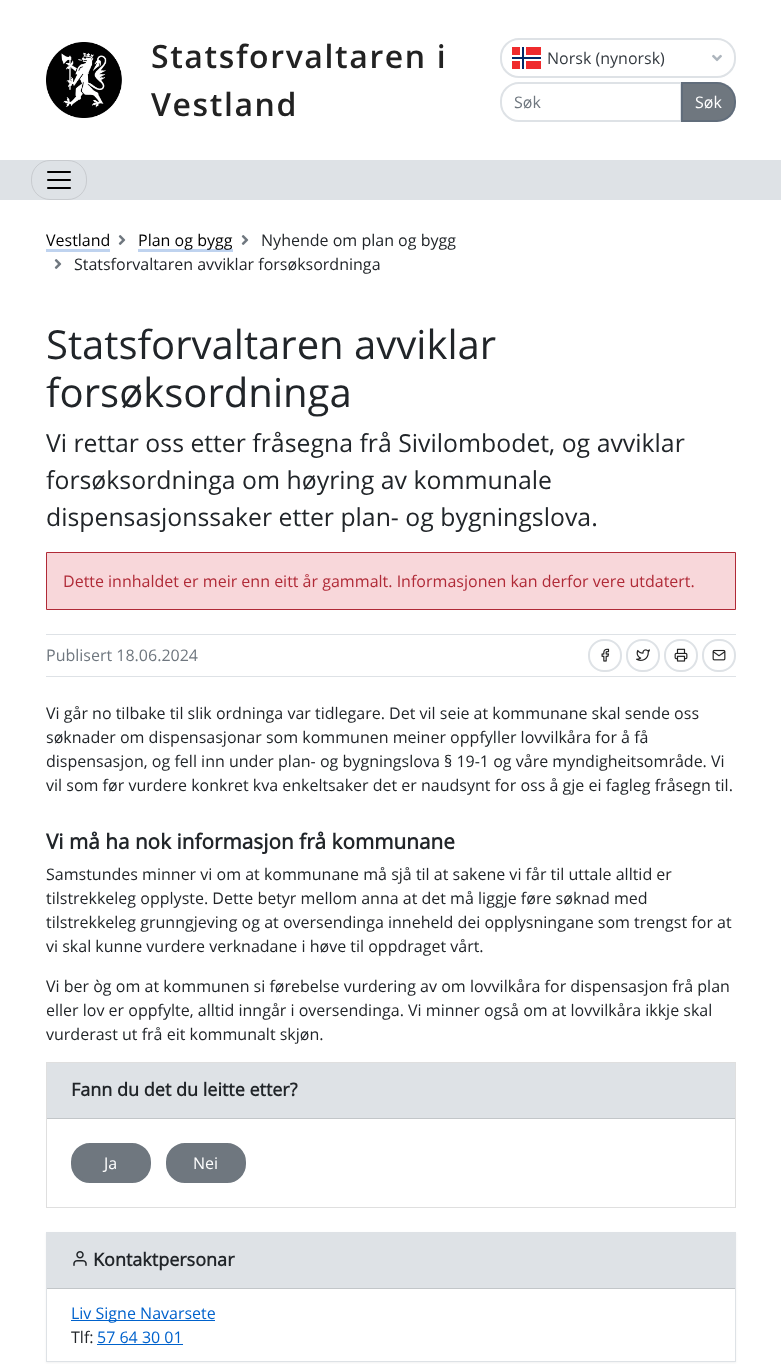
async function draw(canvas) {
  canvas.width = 781
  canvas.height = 1364
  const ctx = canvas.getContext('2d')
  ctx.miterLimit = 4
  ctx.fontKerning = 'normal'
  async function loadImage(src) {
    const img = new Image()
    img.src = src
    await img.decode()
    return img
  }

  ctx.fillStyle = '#fff'
  ctx.fillRect(0, 0, 781, 1364)
  ctx.drawImage(await loadImage('image0.png'), 46, 42, 76, 76)
  ctx.letterSpacing = '1.6px'
  ctx.font = '600 32px Open Sans'
  ctx.fillStyle = '#222'
  ctx.fillText('Statsforvaltaren i', 151, 68)
  ctx.fillText('Vestland', 151, 116)
  ctx.fillStyle = '#ef2b2d'
  ctx.fillRect(512, 47, 29, 22)
  ctx.fillStyle = '#fff'
  ctx.fillRect(520, 47, 6, 22)
  ctx.fillRect(512, 55, 29, 6)
  ctx.fillStyle = '#002868'
  ctx.fillRect(522, 47, 2, 22)
  ctx.fillRect(512, 57, 29, 2)
  ctx.beginPath()
  ctx.roundRect(501, 39, 234, 38, 18)
  ctx.strokeStyle = '#dee2e6'
  ctx.lineWidth = 2
  ctx.stroke()
  ctx.letterSpacing = '0px'
  ctx.font = '16px Open Sans'
  ctx.fillStyle = '#343a40'
  ctx.fillText('Norsk (nynorsk)', 547, 64)
  ctx.drawImage(await loadImage('image1.png'), 712, 54, 10, 8)
  ctx.beginPath()
  ctx.roundRect(501, 83, 180, 38, [18, 0, 0, 18])
  ctx.stroke()
  ctx.fillStyle = '#6f777f'
  ctx.fillText('Søk', 514, 108)
  ctx.beginPath()
  ctx.roundRect(681, 82, 55, 40, [0, 19, 19, 0])
  ctx.fill()
  ctx.beginPath()
  ctx.roundRect(682, 83, 53, 38, [0, 18, 18, 0])
  ctx.strokeStyle = '#0028641f'
  ctx.stroke()
  ctx.fillStyle = '#fff'
  ctx.fillText('Søk', 695, 108)
  ctx.fillStyle = '#dee2e6'
  ctx.fillRect(0, 160, 781, 40)
  ctx.beginPath()
  ctx.roundRect(31.5, 160.5, 55, 39, 18.5)
  ctx.strokeStyle = '#c8cbcf'
  ctx.lineWidth = 1
  ctx.stroke()
  ctx.drawImage(await loadImage('image2.png'), 47, 171, 24, 18)
  ctx.fillStyle = '#000'
  ctx.fillText('Vestland', 46, 246)
  ctx.fillStyle = '#bfd3ef'
  ctx.fillRect(46, 249, 64, 3)
  ctx.drawImage(await loadImage('image3.png'), 118, 235, 8, 10)
  ctx.fillRect(138, 249, 95, 3)
  ctx.fillStyle = '#000'
  ctx.fillText('Plan og bygg', 138, 246)
  ctx.drawImage(await loadImage('image3.png'), 241, 235, 8, 10)
  ctx.fillStyle = '#212529'
  ctx.fillText('Nyhende om plan og bygg', 261, 246)
  ctx.drawImage(await loadImage('image3.png'), 54, 259, 8, 10)
  ctx.fillText('Statsforvaltaren avviklar forsøksordninga', 74, 270)
  ctx.font = '40px Open Sans'
  ctx.fillText('Statsforvaltaren avviklar', 46, 359)
  ctx.fillText('forsøksordninga', 46, 407)
  ctx.font = '24.8px Open Sans'
  ctx.fillText('Vi rettar oss etter fråsegna frå Sivilombodet, og avviklar', 46, 452)
  ctx.fillText('forsøksordninga om høyring av kommunale', 46, 489)
  ctx.fillText('dispensasjonssaker etter plan- og bygningslova.', 46, 526)
  ctx.fillStyle = '#f8d7da'
  ctx.beginPath()
  ctx.rect(46.5, 552.5, 689, 57)
  ctx.fill()
  ctx.strokeStyle = '#b02a37'
  ctx.stroke()
  ctx.font = '16px Open Sans'
  ctx.fillStyle = '#b02a37'
  ctx.fillText('Dette innhaldet er meir enn eitt år gammalt. Informasjonen kan derfor vere utdatert.', 63, 587)
  ctx.fillStyle = '#dee2e6'
  ctx.fillRect(46, 634, 690, 1)
  ctx.fillRect(46, 676, 690, 1)
  ctx.fillStyle = '#6f777f'
  ctx.fillText('Publisert 18.06.2024', 46, 661)
  ctx.beginPath()
  ctx.roundRect(589, 640, 32, 31, 15)
  ctx.strokeStyle = '#dee2e6'
  ctx.lineWidth = 2
  ctx.stroke()
  ctx.drawImage(await loadImage('image4.png'), 601, 648, 9, 14)
  ctx.beginPath()
  ctx.roundRect(627, 640, 32, 31, 15)
  ctx.stroke()
  ctx.drawImage(await loadImage('image5.png'), 636, 649, 14, 12)
  ctx.beginPath()
  ctx.roundRect(665, 640, 32, 31, 15)
  ctx.stroke()
  ctx.drawImage(await loadImage('image6.png'), 674, 648, 14, 14)
  ctx.beginPath()
  ctx.roundRect(703, 640, 32, 31, 15)
  ctx.stroke()
  ctx.drawImage(await loadImage('image7.png'), 712, 649, 14, 12)
  ctx.fillStyle = '#212529'
  ctx.fillText('Vi går no tilbake til slik ordninga var tidlegare. Det vil seie at kommunane skal sende oss', 46, 719)
  ctx.fillText('søknader om dispensasjonar som kommunen meiner oppfyller lovvilkåra for å få', 46, 743)
  ctx.fillText('dispensasjon, og fell inn under plan- og bygningslova § 19-1 og våre myndigheitsområde. Vi', 46, 767)
  ctx.fillText('vil som før vurdere konkret kva enkeltsaker det er naudsynt for oss å gje ei fagleg fråsegn til.', 46, 791)
  ctx.font = 'bold 20.75px Open Sans'
  ctx.fillText('Vi må ha nok informasjon frå kommunane', 46, 849)
  ctx.font = '16px Open Sans'
  ctx.fillText('Samstundes minner vi om at kommunane må sjå til at sakene vi får til uttale alltid er', 46, 880)
  ctx.fillText('tilstrekkeleg opplyste. Dette betyr mellom anna at det må liggje føre søknad med', 46, 904)
  ctx.fillText('tilstrekkeleg grunngjeving og at oversendinga inneheld dei opplysningane som trengst for at', 46, 928)
  ctx.fillText('vi skal kunne vurdere verknadane i høve til oppdraget vårt.', 46, 952)
  ctx.fillText('Vi ber òg om at kommunen si førebelse vurdering av om lovvilkåra for dispensasjon frå plan', 46, 992)
  ctx.fillText('eller lov er oppfylte, alltid inngår i oversendinga. Vi minner også om at lovvilkåra ikkje skal', 46, 1016)
  ctx.fillText('vurderast ut frå eit kommunalt skjøn.', 46, 1040)
  ctx.strokeStyle = '#dfdfdf'
  ctx.lineWidth = 1
  ctx.strokeRect(46.5, 1062.5, 689, 145)
  ctx.fillStyle = '#dee2e6'
  ctx.fillRect(47, 1063, 688, 55)
  ctx.fillStyle = '#c2c6c9'
  ctx.fillRect(47, 1118, 688, 1)
  ctx.font = 'bold 18px Open Sans'
  ctx.fillStyle = '#212529'
  ctx.fillText('Fann du det du leitte etter?', 71, 1096)
  ctx.fillStyle = '#6f777f'
  ctx.beginPath()
  ctx.roundRect(72, 1144, 78, 38, 18)
  ctx.fill()
  ctx.strokeStyle = '#6f777f'
  ctx.lineWidth = 2
  ctx.stroke()
  ctx.font = '16px Open Sans'
  ctx.fillStyle = '#fff'
  ctx.fillText('Ja', 104, 1169)
  ctx.fillStyle = '#6f777f'
  ctx.beginPath()
  ctx.roundRect(167, 1144, 78, 38, 18)
  ctx.fill()
  ctx.stroke()
  ctx.fillStyle = '#fff'
  ctx.fillText('Nei', 193, 1169)
  ctx.fillStyle = '#0000000d'
  ctx.filter = 'blur(1px)'
  ctx.beginPath()
  ctx.rect(46, 1233, 690, 130)
  ctx.fill()
  ctx.filter = 'none'
  ctx.fillStyle = '#dee2e6'
  ctx.fillRect(46, 1232, 690, 130)
  ctx.fillStyle = '#c2c6c9'
  ctx.fillRect(47, 1288, 688, 1)
  ctx.drawImage(await loadImage('image8.png'), 73, 1251, 14, 15)
  ctx.font = 'bold 18px Open Sans'
  ctx.fillStyle = '#212529'
  ctx.fillText('Kontaktpersonar', 93, 1266)
  ctx.fillStyle = '#fff'
  ctx.fillRect(47, 1289, 688, 72)
  ctx.fillStyle = '#0062cc'
  ctx.fillRect(71, 1320, 144, 1)
  ctx.font = '16px Open Sans'
  ctx.fillText('Liv Signe Navarsete', 71, 1319)
  ctx.fillStyle = '#212529'
  ctx.fillText('Tlf:', 71, 1343)
  ctx.fillStyle = '#0062cc'
  ctx.fillText('57 64 30 01', 97, 1343)
  ctx.fillRect(97, 1344, 86, 1)
}

draw(document.querySelector('canvas'))
